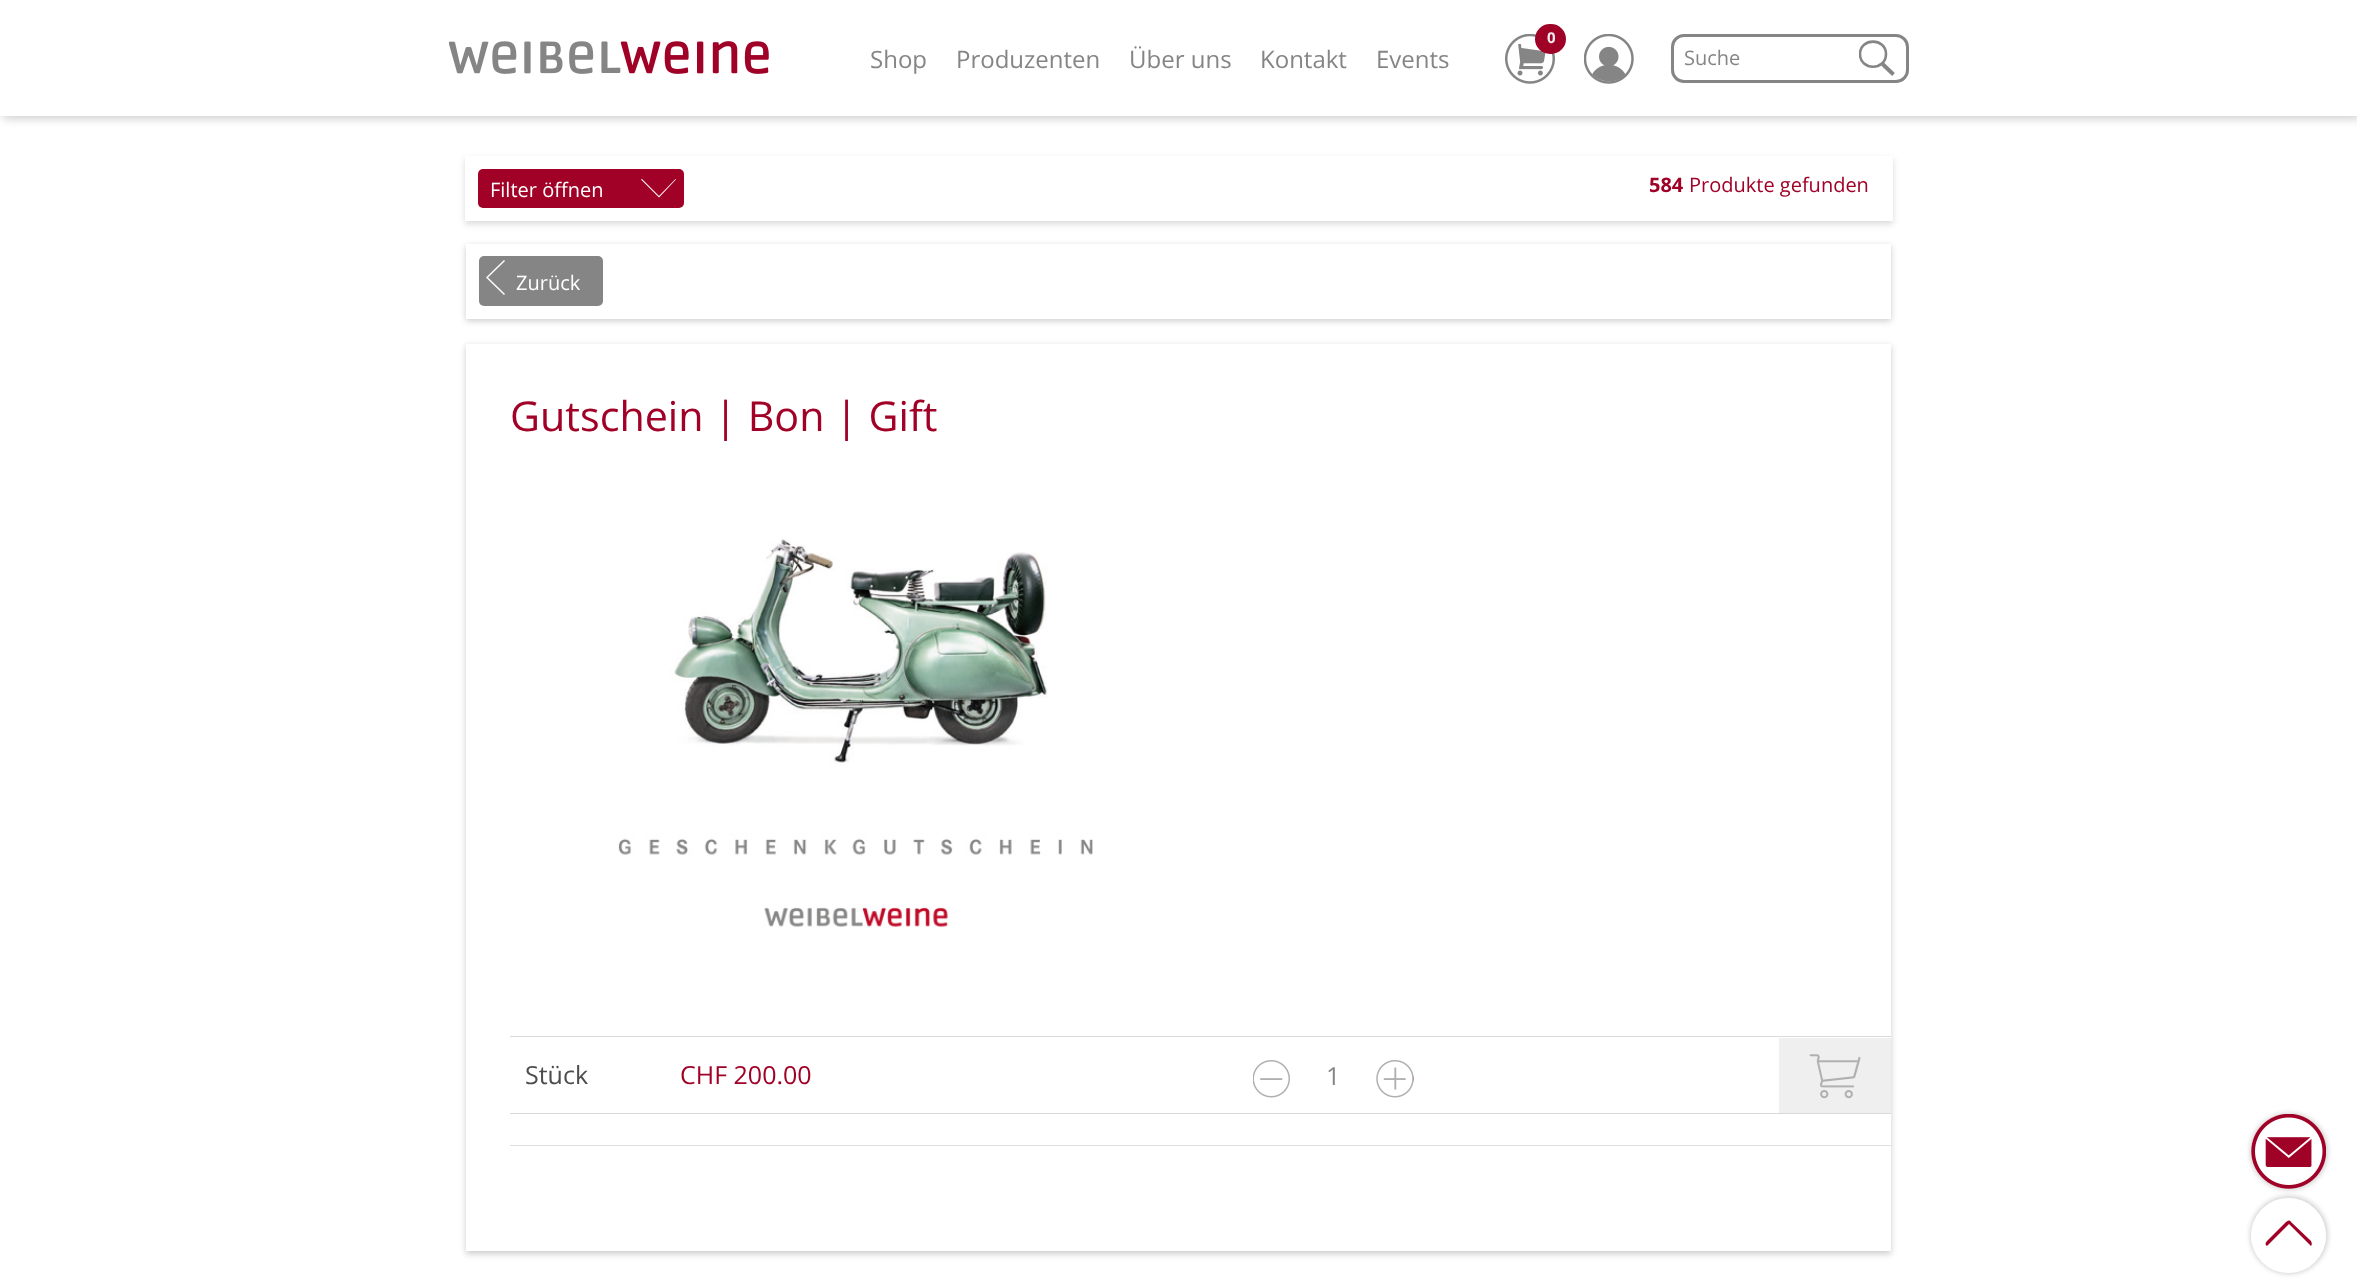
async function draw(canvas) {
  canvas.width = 2357
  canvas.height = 1284
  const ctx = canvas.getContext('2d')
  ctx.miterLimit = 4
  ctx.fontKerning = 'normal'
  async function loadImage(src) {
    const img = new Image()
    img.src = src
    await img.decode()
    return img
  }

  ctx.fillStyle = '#fff'
  ctx.fillRect(0, 0, 2357, 1284)
  ctx.save()
  ctx.beginPath()
  ctx.rect(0, 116, 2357, 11)
  ctx.clip()
  ctx.fillStyle = '#9494946e'
  ctx.filter = 'blur(4.5px)'
  ctx.beginPath()
  ctx.rect(3, 3, 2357, 116)
  ctx.fill()
  ctx.filter = 'none'
  ctx.restore()
  ctx.drawImage(await loadImage('image0.png'), 449, 41, 320, 33)
  ctx.drawImage(await loadImage('image1.png'), 1505, 34, 50, 50)
  ctx.fillStyle = '#9f0127'
  ctx.beginPath()
  ctx.roundRect(1535, 24, 31, 30, 15)
  ctx.fill()
  ctx.font = 'bold 15px Open Sans'
  ctx.fillStyle = '#eee'
  ctx.fillText('0', 1547, 43)
  ctx.drawImage(await loadImage('image2.png'), 1584, 34, 50, 50)
  ctx.font = '24px Open Sans'
  ctx.fillStyle = '#858585'
  ctx.fillText('Shop', 870, 68)
  ctx.fillText('Produzenten', 956, 68)
  ctx.fillText('Über uns', 1129, 68)
  ctx.fillText('Kontakt', 1260, 68)
  ctx.fillText('Events', 1376, 68)
  ctx.beginPath()
  ctx.roundRect(1672.5, 35.5, 235, 46, 11.5)
  ctx.strokeStyle = '#858585'
  ctx.lineWidth = 3
  ctx.stroke()
  ctx.font = '20px Open Sans'
  ctx.fillText('Suche', 1684, 65)
  ctx.save()
  ctx.beginPath()
  ctx.rect(1859, 40, 35, 36)
  ctx.clip()
  ctx.beginPath()
  ctx.moveTo(1886, 54)
  ctx.bezierCurveTo(1886, 71, 1860, 71, 1860, 54)
  ctx.bezierCurveTo(1860, 37.5, 1886, 37.5, 1886, 54)
  ctx.closePath()
  ctx.lineWidth = 2.6
  ctx.stroke()
  ctx.restore()
  ctx.beginPath()
  ctx.moveTo(1882.5, 64)
  ctx.lineTo(1893.5, 74.5)
  ctx.lineWidth = 3.9
  ctx.stroke()
  ctx.fillStyle = '#00000026'
  ctx.filter = 'blur(3px)'
  ctx.beginPath()
  ctx.rect(465, 159, 1428, 65)
  ctx.fill()
  ctx.filter = 'none'
  ctx.fillStyle = '#fff'
  ctx.fillRect(465, 156, 1428, 65)
  ctx.fillStyle = '#a10127'
  ctx.beginPath()
  ctx.roundRect(478, 169, 206, 39, 5)
  ctx.fill()
  ctx.fillStyle = '#fff'
  ctx.beginPath()
  ctx.moveTo(641, 179.5)
  ctx.lineTo(642, 179)
  ctx.lineTo(659, 196)
  ctx.lineTo(675.5, 179)
  ctx.lineTo(676, 179.5)
  ctx.lineTo(659, 197.5)
  ctx.closePath()
  ctx.fill()
  ctx.fillText('Filter öffnen', 490, 197)
  ctx.font = 'bold 20px Open Sans'
  ctx.fillStyle = '#a10127'
  ctx.fillText('584', 1649, 192)
  ctx.font = '20px Open Sans'
  ctx.fillText('Produkte gefunden', 1689, 192)
  ctx.fillStyle = '#00000033'
  ctx.filter = 'blur(3px)'
  ctx.beginPath()
  ctx.rect(466, 246, 1425, 75)
  ctx.fill()
  ctx.filter = 'none'
  ctx.fillStyle = '#fff'
  ctx.fillRect(466, 244, 1425, 75)
  ctx.fillStyle = '#858585'
  ctx.beginPath()
  ctx.roundRect(479, 256, 124, 50, 5)
  ctx.fill()
  ctx.fillStyle = '#fff'
  ctx.beginPath()
  ctx.moveTo(504, 260)
  ctx.lineTo(505, 261)
  ctx.lineTo(488, 277.5)
  ctx.lineTo(505, 294)
  ctx.lineTo(504, 295)
  ctx.lineTo(486, 277.5)
  ctx.closePath()
  ctx.fill()
  ctx.fillText('Zurück', 516, 290)
  ctx.fillStyle = '#00000033'
  ctx.filter = 'blur(3px)'
  ctx.beginPath()
  ctx.rect(466, 346, 1425, 908)
  ctx.fill()
  ctx.filter = 'none'
  ctx.fillStyle = '#fff'
  ctx.fillRect(466, 344, 1425, 907)
  ctx.font = '41.25px Open Sans'
  ctx.fillStyle = '#a10127'
  ctx.fillText('Gutschein | Bon | Gift', 510, 431)
  ctx.drawImage(await loadImage('image3.png'), 618, 537, 475, 390)
  ctx.fillStyle = '#d9d9d9'
  ctx.fillRect(510, 1036, 1381, 1)
  ctx.fillRect(510, 1113, 1381, 1)
  ctx.font = '25px Open Sans'
  ctx.fillStyle = '#4d4d4d'
  ctx.fillText('Stück', 525, 1084)
  ctx.fillStyle = '#a10127'
  ctx.fillText('CHF 200.00', 680, 1084)
  ctx.drawImage(await loadImage('image4.png'), 1253, 1060, 37, 38)
  ctx.fillStyle = '#858585'
  ctx.fillText('1', 1326, 1085)
  ctx.drawImage(await loadImage('image5.png'), 1376, 1060, 38, 38)
  ctx.drawImage(await loadImage('image6.png'), 1779, 1038, 112, 75)
  ctx.fillStyle = '#dfdfdf'
  ctx.fillRect(510, 1145, 1381, 1)
  ctx.fillStyle = '#7b7b7b59'
  ctx.filter = 'blur(2.5px)'
  ctx.beginPath()
  ctx.roundRect(2250, 1113, 78, 77, 38.5)
  ctx.fill()
  ctx.filter = 'none'
  ctx.drawImage(await loadImage('image7.png'), 2251, 1114, 75, 75)
  ctx.filter = 'blur(2.5px)'
  ctx.beginPath()
  ctx.roundRect(2250, 1196, 78, 78, 39)
  ctx.fill()
  ctx.filter = 'none'
  ctx.fillStyle = '#fcfcfc'
  ctx.beginPath()
  ctx.arc(2288.5, 1235.5, 37.5, 0, 2 * Math.PI)
  ctx.fill()
  ctx.fillStyle = '#ffffffcc'
  ctx.beginPath()
  ctx.arc(2288.5, 1235.5, 37.5, 0, 2 * Math.PI)
  ctx.fill()
  ctx.fillStyle = '#a10127'
  ctx.beginPath()
  ctx.moveTo(2291, 1222)
  ctx.lineTo(2311, 1241)
  ctx.bezierCurveTo(2312, 1243, 2312, 1245, 2311, 1246)
  ctx.lineTo(2291, 1266)
  ctx.bezierCurveTo(2290, 1267, 2288, 1267, 2286, 1266)
  ctx.lineTo(2267, 1246)
  ctx.bezierCurveTo(2265, 1245, 2265, 1243, 2267, 1241)
  ctx.lineTo(2286, 1222)
  ctx.bezierCurveTo(2288, 1220, 2290, 1220, 2291, 1222)
  ctx.closePath()
  ctx.moveTo(2289, 1224)
  ctx.lineTo(2311, 1246)
  ctx.lineTo(2291, 1266)
  ctx.bezierCurveTo(2290, 1267, 2288, 1267, 2286, 1266)
  ctx.lineTo(2267, 1246)
  ctx.lineTo(2269, 1244)
  ctx.closePath()
  ctx.fill('evenodd')
}

draw(document.querySelector('canvas'))
